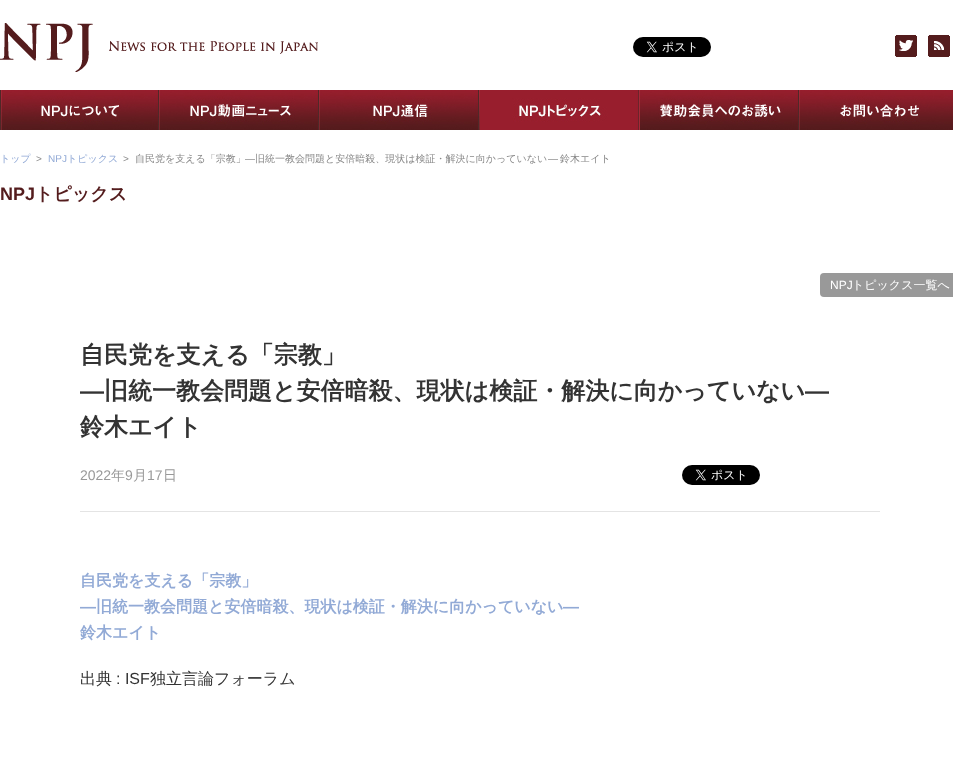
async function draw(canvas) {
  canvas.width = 953
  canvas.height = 758
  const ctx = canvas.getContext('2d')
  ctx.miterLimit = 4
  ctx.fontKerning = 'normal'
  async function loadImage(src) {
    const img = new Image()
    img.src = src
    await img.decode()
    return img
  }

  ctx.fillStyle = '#fff'
  ctx.fillRect(0, 0, 953, 758)
  ctx.drawImage(await loadImage('image0.png'), 0, 23, 318, 49)
  ctx.drawImage(await loadImage('image1.png'), 633, 37, 78, 20)
  ctx.drawImage(await loadImage('image2.png'), 895, 35, 22, 22)
  ctx.drawImage(await loadImage('image3.png'), 928, 35, 22, 22)
  ctx.drawImage(await loadImage('image4.png'), 160, 90, 793, 40)
  ctx.drawImage(await loadImage('image5.png'), 0, 90, 160, 40)
  ctx.drawImage(await loadImage('image6.png'), 190, 90, 130, 40)
  ctx.drawImage(await loadImage('image7.png'), 373, 90, 107, 40)
  ctx.drawImage(await loadImage('image8.png'), 480, 90, 160, 40)
  ctx.drawImage(await loadImage('image9.png'), 658, 90, 142, 40)
  ctx.drawImage(await loadImage('image10.png'), 840, 99, 79, 23)
  ctx.font = '500 10px WenQuanYi Zen Hei'
  ctx.fillStyle = '#92aad6'
  ctx.fillText('トップ', 0, 162)
  ctx.font = '10px Liberation Sans'
  ctx.fillStyle = '#888'
  ctx.fillText('>', 36, 162)
  ctx.fillStyle = '#92aad6'
  ctx.fillText('NPJ', 48, 162)
  ctx.font = '500 10px WenQuanYi Zen Hei'
  ctx.fillText('トピックス', 67, 162)
  ctx.font = '10px Liberation Sans'
  ctx.fillStyle = '#888'
  ctx.fillText('>', 123, 162)
  ctx.font = '500 10px WenQuanYi Zen Hei'
  ctx.fillText('自民党を支える「宗教」', 135, 162)
  ctx.font = '10px Liberation Sans'
  ctx.fillText('―', 245, 162)
  ctx.font = '500 10px WenQuanYi Zen Hei'
  ctx.fillText('旧統一教会問題と安倍暗殺、現状は検証・解決に向かっていない', 255, 162)
  ctx.font = '10px Liberation Sans'
  ctx.fillText('―', 548, 162)
  ctx.font = '500 10px WenQuanYi Zen Hei'
  ctx.fillText('鈴木エイト', 560, 162)
  ctx.font = 'bold 18px Liberation Sans'
  ctx.fillStyle = '#541c1d'
  ctx.fillText('NPJ', 0, 200)
  ctx.font = 'bold 18px WenQuanYi Zen Hei'
  ctx.fillText('トピックス', 35, 200)
  ctx.fillStyle = '#999'
  ctx.beginPath()
  ctx.roundRect(820, 273, 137, 24, 4)
  ctx.fill()
  ctx.font = '12px Liberation Sans'
  ctx.fillStyle = '#fff'
  ctx.fillText('NPJ', 830, 289)
  ctx.font = '500 12px WenQuanYi Zen Hei'
  ctx.fillText('トピックス一覧へ', 852, 289)
  ctx.font = 'bold 24px WenQuanYi Zen Hei'
  ctx.fillStyle = '#333'
  ctx.fillText('自民党を支える「宗教」', 80, 363)
  ctx.font = 'bold 24px Liberation Sans'
  ctx.fillText('―', 80, 399)
  ctx.font = 'bold 24px WenQuanYi Zen Hei'
  ctx.fillText('旧統一教会問題と安倍暗殺、現状は検証・解決に向かっていない', 104, 399)
  ctx.font = 'bold 24px Liberation Sans'
  ctx.fillText('―', 805, 399)
  ctx.font = 'bold 24px WenQuanYi Zen Hei'
  ctx.fillText('鈴木エイト', 80, 435)
  ctx.fillStyle = '#e4e4e4'
  ctx.fillRect(80, 511, 800, 1)
  ctx.font = '14px Liberation Sans'
  ctx.fillStyle = '#999'
  ctx.fillText('2022', 80, 480)
  ctx.font = '500 14px WenQuanYi Zen Hei'
  ctx.fillText('年', 111, 480)
  ctx.font = '14px Liberation Sans'
  ctx.fillText('9', 125, 480)
  ctx.font = '500 14px WenQuanYi Zen Hei'
  ctx.fillText('月', 133, 480)
  ctx.font = '14px Liberation Sans'
  ctx.fillText('17', 147, 480)
  ctx.font = '500 14px WenQuanYi Zen Hei'
  ctx.fillText('日', 163, 480)
  ctx.drawImage(await loadImage('image1.png'), 682, 465, 78, 20)
  ctx.font = 'bold 16px WenQuanYi Zen Hei'
  ctx.fillStyle = '#92aad6'
  ctx.fillText('自民党を支える「宗教」', 80, 586)
  ctx.font = 'bold 16px Liberation Sans'
  ctx.fillText('―', 80, 612)
  ctx.font = 'bold 16px WenQuanYi Zen Hei'
  ctx.fillText('旧統一教会問題と安倍暗殺、現状は検証・解決に向かっていない', 96, 612)
  ctx.font = 'bold 16px Liberation Sans'
  ctx.fillText('―', 563, 612)
  ctx.font = 'bold 16px WenQuanYi Zen Hei'
  ctx.fillText('鈴木エイト', 80, 638)
  ctx.font = '500 16px WenQuanYi Zen Hei'
  ctx.fillStyle = '#333'
  ctx.fillText('出典', 80, 684)
  ctx.font = '16px Liberation Sans'
  ctx.fillText(': ISF', 116, 684)
  ctx.font = '500 16px WenQuanYi Zen Hei'
  ctx.fillText('独立言論フォーラム', 150, 684)
}

draw(document.querySelector('canvas'))
